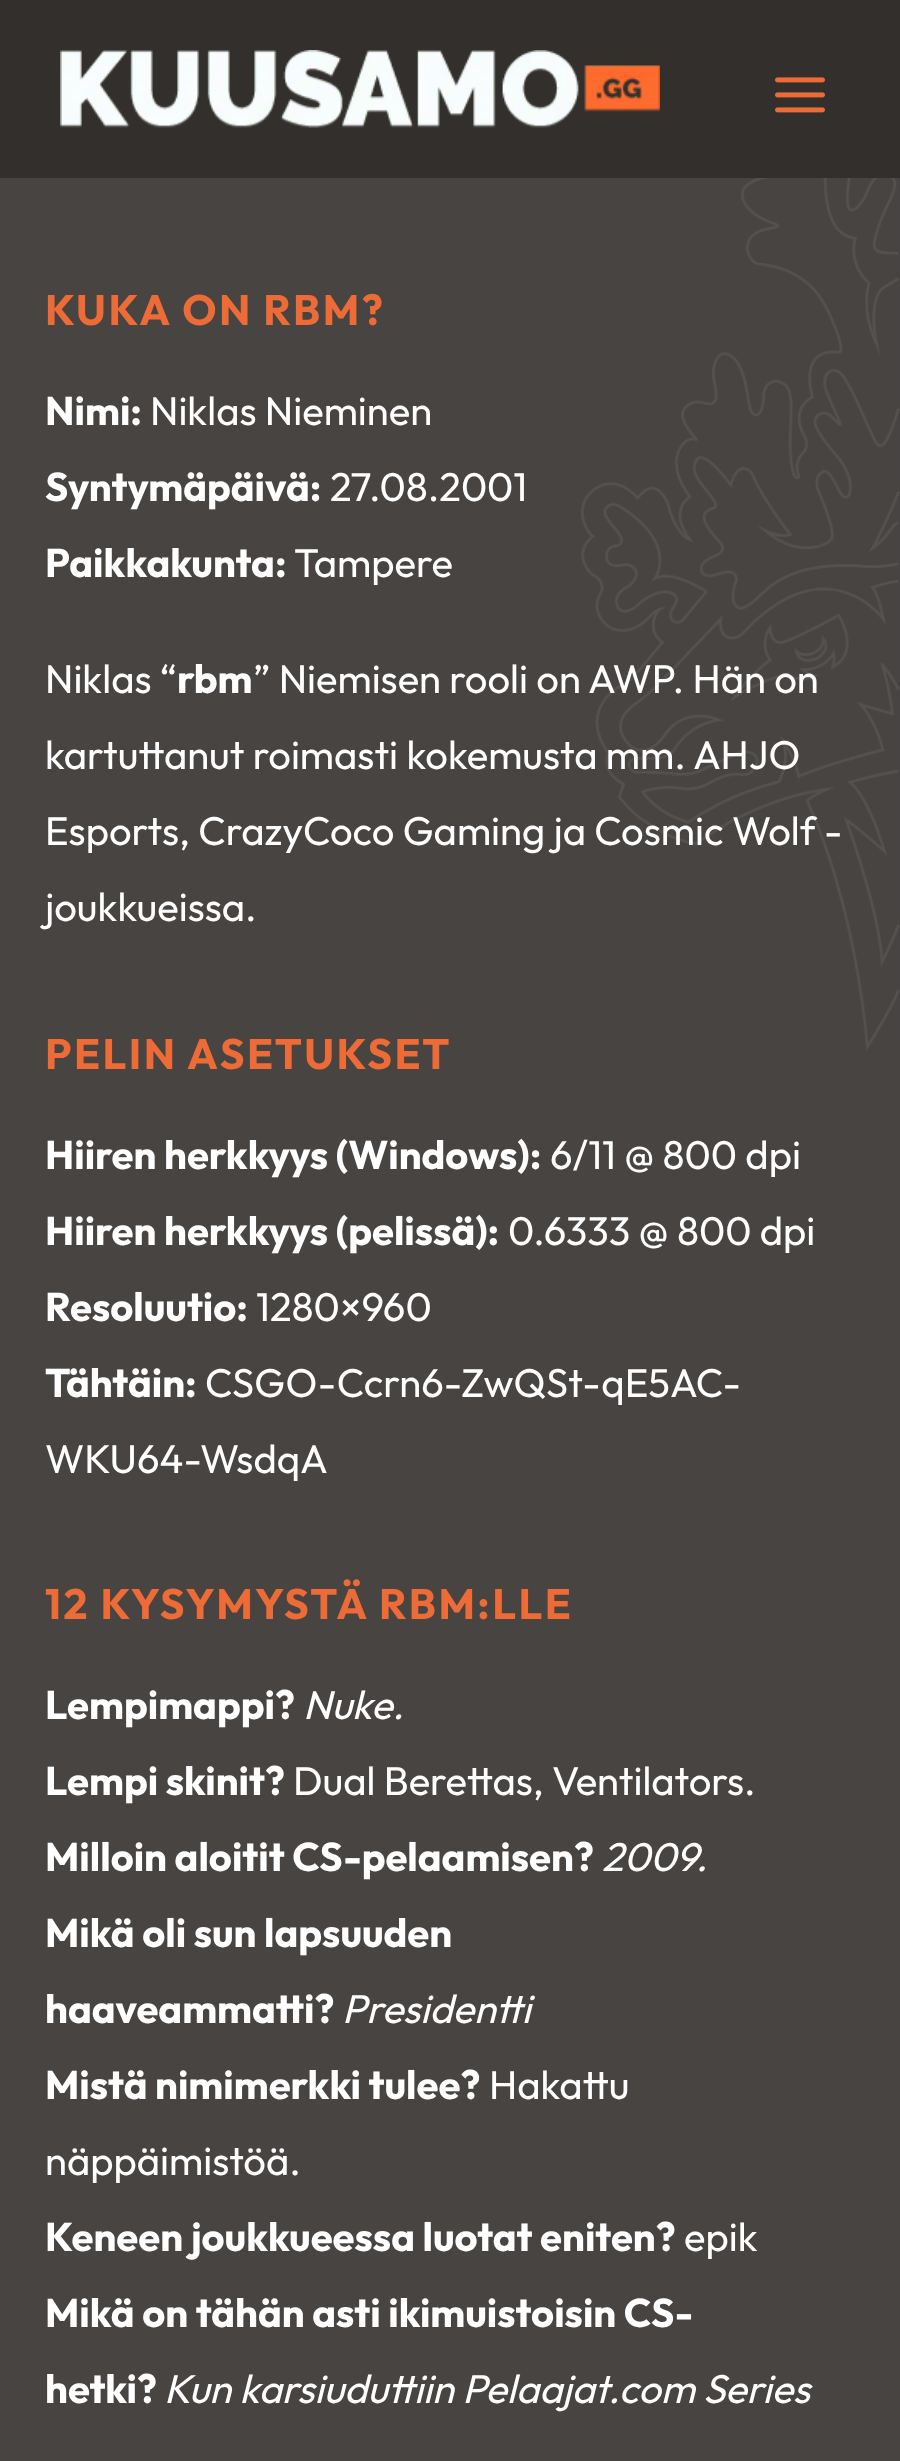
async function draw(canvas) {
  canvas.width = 900
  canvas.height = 2461
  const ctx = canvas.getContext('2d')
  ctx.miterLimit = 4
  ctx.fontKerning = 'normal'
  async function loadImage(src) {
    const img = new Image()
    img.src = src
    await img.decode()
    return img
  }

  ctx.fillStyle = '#474442'
  ctx.fillRect(0, 0, 900, 2461)
  ctx.fillStyle = '#332f2c'
  ctx.fillRect(0, 0, 900, 178)
  ctx.drawImage(await loadImage('image0.png'), 60, 50, 600, 78)
  ctx.drawImage(await loadImage('image1.png'), 775, 77, 50, 36)
  ctx.drawImage(await loadImage('image2.png'), 581, 178, 319, 872)
  ctx.letterSpacing = '2.5px'
  ctx.font = 'bold 42.5px Outfit'
  ctx.fillStyle = '#ed6b36'
  ctx.fillText('KUKA ON RBM?', 45, 325)
  ctx.letterSpacing = '0px'
  ctx.font = 'bold 40px Outfit'
  ctx.fillStyle = '#fff'
  ctx.fillText('Nimi:', 45, 425)
  ctx.font = '40px Outfit'
  ctx.fillText('Niklas Nieminen', 150, 425)
  ctx.font = 'bold 40px Outfit'
  ctx.fillText('Syntymäpäivä:', 45, 501)
  ctx.font = '40px Outfit'
  ctx.fillText('27.08.2001', 330, 501)
  ctx.font = 'bold 40px Outfit'
  ctx.fillText('Paikkakunta:', 45, 577)
  ctx.font = '40px Outfit'
  ctx.fillText('Tampere', 294, 577)
  ctx.fillText('Niklas “', 45, 693)
  ctx.font = 'bold 40px Outfit'
  ctx.fillText('rbm', 177, 693)
  ctx.font = '40px Outfit'
  ctx.fillText('” Niemisen rooli on AWP. Hän on', 253, 693)
  ctx.fillText('kartuttanut roimasti kokemusta mm. AHJO', 45, 769)
  ctx.fillText('Esports, CrazyCoco Gaming ja Cosmic Wolf -', 45, 845)
  ctx.fillText('joukkueissa.', 45, 921)
  ctx.letterSpacing = '2.5px'
  ctx.font = 'bold 42.5px Outfit'
  ctx.fillStyle = '#ed6b36'
  ctx.fillText('PELIN ASETUKSET', 45, 1069)
  ctx.letterSpacing = '0px'
  ctx.font = 'bold 40px Outfit'
  ctx.fillStyle = '#fff'
  ctx.fillText('Hiiren herkkyys (Windows):', 45, 1169)
  ctx.font = '40px Outfit'
  ctx.fillText('6/11 @ 800 dpi', 550, 1169)
  ctx.font = 'bold 40px Outfit'
  ctx.fillText('Hiiren herkkyys (pelissä):', 45, 1245)
  ctx.font = '40px Outfit'
  ctx.fillText('0.6333 @ 800 dpi', 508, 1245)
  ctx.font = 'bold 40px Outfit'
  ctx.fillText('Resoluutio:', 45, 1321)
  ctx.font = '40px Outfit'
  ctx.fillText('1280×960', 256, 1321)
  ctx.font = 'bold 40px Outfit'
  ctx.fillText('Tähtäin:', 45, 1397)
  ctx.font = '40px Outfit'
  ctx.fillText('CSGO-Ccrn6-ZwQSt-qE5AC-', 205, 1397)
  ctx.fillText('WKU64-WsdqA', 45, 1473)
  ctx.letterSpacing = '2.5px'
  ctx.font = 'bold 42.5px Outfit'
  ctx.fillStyle = '#ed6b36'
  ctx.fillText('12 KYSYMYSTÄ RBM:LLE', 45, 1619)
  ctx.letterSpacing = '0px'
  ctx.font = 'bold 40px Outfit'
  ctx.fillStyle = '#fff'
  ctx.fillText('Lempimappi?', 45, 1719)
  ctx.font = 'italic 40px Outfit'
  ctx.fillText('Nuke.', 303, 1719)
  ctx.font = 'bold 40px Outfit'
  ctx.fillText('Lempi skinit?', 45, 1795)
  ctx.font = '40px Outfit'
  ctx.fillText('Dual Berettas, Ventilators.', 293, 1795)
  ctx.font = 'bold 40px Outfit'
  ctx.fillText('Milloin aloitit CS-pelaamisen?', 45, 1871)
  ctx.font = 'italic 40px Outfit'
  ctx.fillText('2009.', 602, 1871)
  ctx.font = 'bold 40px Outfit'
  ctx.fillText('Mikä oli sun lapsuuden', 45, 1947)
  ctx.fillText('haaveammatti?', 45, 2023)
  ctx.font = 'italic 40px Outfit'
  ctx.fillText('Presidentti', 342, 2023)
  ctx.font = 'bold 40px Outfit'
  ctx.fillText('Mistä nimimerkki tulee?', 45, 2099)
  ctx.font = '40px Outfit'
  ctx.fillText('Hakattu', 489, 2099)
  ctx.fillText('näppäimistöä.', 45, 2175)
  ctx.font = 'bold 40px Outfit'
  ctx.fillText('Keneen joukkueessa luotat eniten?', 45, 2251)
  ctx.font = '40px Outfit'
  ctx.fillText('epik', 684, 2251)
  ctx.font = 'bold 40px Outfit'
  ctx.fillText('Mikä on tähän asti ikimuistoisin CS-', 45, 2327)
  ctx.fillText('hetki?', 45, 2403)
  ctx.font = 'italic 40px Outfit'
  ctx.fillText('Kun karsiuduttiin Pelaajat.com Series', 164, 2403)
}

draw(document.querySelector('canvas'))
